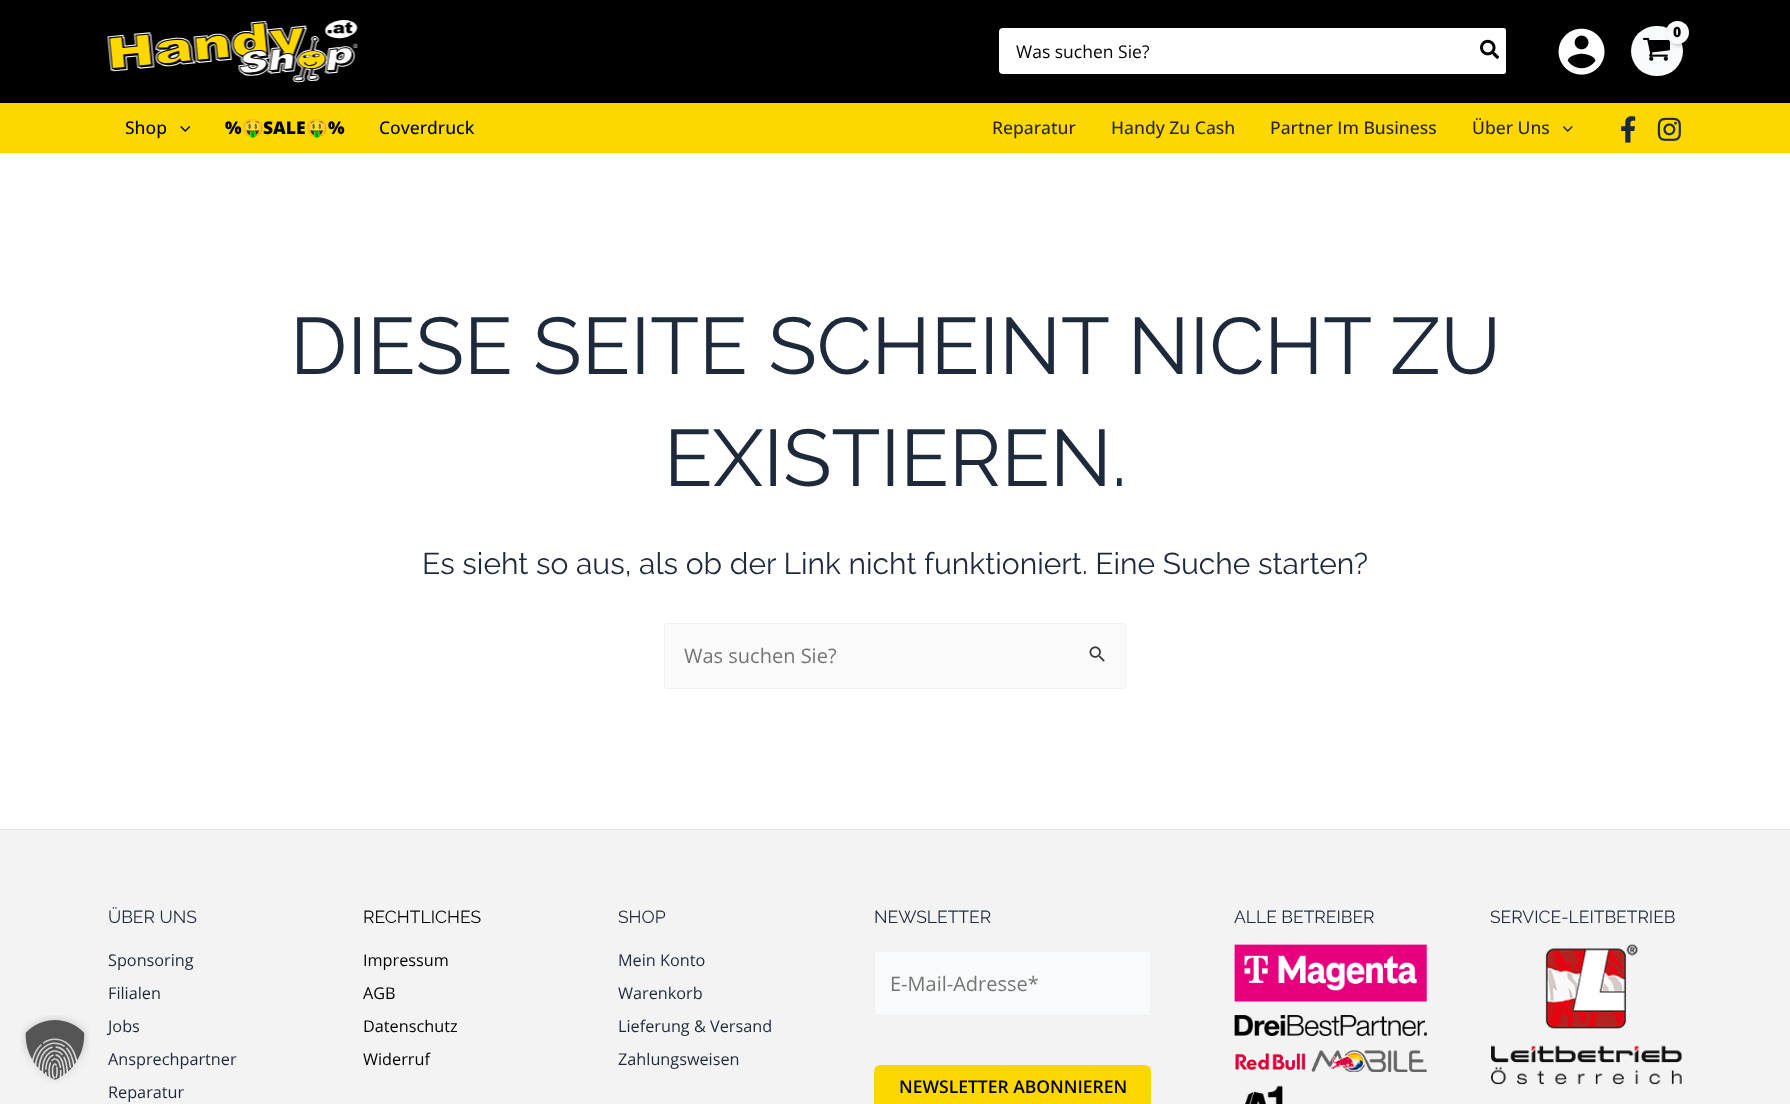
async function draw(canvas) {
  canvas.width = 1790
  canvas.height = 1104
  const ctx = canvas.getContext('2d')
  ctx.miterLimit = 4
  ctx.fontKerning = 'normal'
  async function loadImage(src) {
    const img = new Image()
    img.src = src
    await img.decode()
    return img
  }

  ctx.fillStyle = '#fff'
  ctx.fillRect(0, 0, 1790, 1104)
  ctx.fillStyle = '#f3f3f3'
  ctx.fillRect(0, 830, 1790, 274)
  ctx.drawImage(await loadImage('image0.png'), 20, 1015, 69, 68)
  ctx.fillStyle = '#000'
  ctx.fillRect(0, 0, 1790, 103)
  ctx.drawImage(await loadImage('image1.png'), 107, 20, 251, 63)
  ctx.fillStyle = '#fff'
  ctx.beginPath()
  ctx.roundRect(999, 28, 507, 46, [4, 2.5, 2.5, 4])
  ctx.fill()
  ctx.font = '17.5px Open Sans'
  ctx.fillStyle = '#000'
  ctx.fillText('Was suchen Sie?', 1016, 58)
  ctx.drawImage(await loadImage('image2.png'), 1480, 39, 19, 20)
  ctx.drawImage(await loadImage('image3.png'), 1558, 28, 47, 47)
  ctx.fillStyle = '#f9fafb'
  ctx.beginPath()
  ctx.roundRect(1631, 26, 52, 50, 25)
  ctx.fill()
  ctx.drawImage(await loadImage('image4.png'), 1643, 37, 27, 24)
  ctx.fillStyle = '#0000004d'
  ctx.filter = 'blur(2px)'
  ctx.beginPath()
  ctx.roundRect(1668, 23, 22, 22, 11)
  ctx.fill()
  ctx.filter = 'none'
  ctx.fillStyle = '#f9fafb'
  ctx.beginPath()
  ctx.arc(1677.5, 32.5, 11.5, 0, 2 * Math.PI)
  ctx.fill()
  ctx.letterSpacing = '-1px'
  ctx.font = '800 14px Open Sans'
  ctx.fillStyle = '#000'
  ctx.fillText('0', 1673, 37)
  ctx.fillStyle = '#fcd800'
  ctx.fillRect(0, 103, 1790, 50)
  ctx.letterSpacing = '0px'
  ctx.font = '500 17.5px Open Sans'
  ctx.fillStyle = '#000'
  ctx.fillText('Shop', 125, 134)
  ctx.drawImage(await loadImage('image5.png'), 180, 126, 10, 6)
  ctx.font = '800 17.5px Open Sans'
  ctx.fillText('%', 225, 134)
  ctx.font = 'bold 17.5px Noto Color Emoji'
  ctx.fillText('🤑', 242, 134)
  ctx.font = '800 17.5px Open Sans'
  ctx.fillText('SALE', 263, 134)
  ctx.font = 'bold 17.5px Noto Color Emoji'
  ctx.fillText('🤑', 306, 134)
  ctx.font = '800 17.5px Open Sans'
  ctx.fillText('%', 328, 134)
  ctx.font = '500 17.5px Open Sans'
  ctx.fillText('Coverdruck', 379, 134)
  ctx.fillStyle = '#2e2424'
  ctx.fillText('Reparatur', 992, 134)
  ctx.fillText('Handy Zu Cash', 1111, 134)
  ctx.fillText('Partner Im Business', 1270, 134)
  ctx.fillText('Über Uns', 1472, 134)
  ctx.drawImage(await loadImage('image6.png'), 1563, 126, 10, 6)
  ctx.drawImage(await loadImage('image7.png'), 1621, 116, 15, 27)
  ctx.drawImage(await loadImage('image8.png'), 1657, 117, 24, 24)
  ctx.font = '80px Raleway'
  ctx.fillStyle = '#1e293b'
  ctx.fillText('DIESE SEITE SCHEINT NICHT ZU', 290, 374)
  ctx.fillText('EXISTIEREN.', 664, 486)
  ctx.font = '30px Raleway'
  ctx.fillText('Es sieht so aus, als ob der Link nicht funktioniert. Eine Suche starten?', 422, 574)
  ctx.fillStyle = '#fafafa'
  ctx.beginPath()
  ctx.roundRect(664.5, 623.5, 461, 65, 2)
  ctx.fill()
  ctx.strokeStyle = '#f1f1f1'
  ctx.stroke()
  ctx.font = '20px Open Sans'
  ctx.fillStyle = '#757575'
  ctx.fillText('Was suchen Sie?', 684, 663)
  ctx.drawImage(await loadImage('image9.png'), 1089, 646, 16, 16)
  ctx.fillStyle = '#e6e6e6'
  ctx.fillRect(0, 829, 1790, 1)
  ctx.font = '17.5px Raleway'
  ctx.fillStyle = '#1e293b'
  ctx.fillText('ÜBER UNS', 108, 923)
  ctx.font = '16.25px Open Sans'
  ctx.fillText('Sponsoring', 108, 966)
  ctx.fillText('Filialen', 108, 999)
  ctx.fillText('Jobs', 108, 1032)
  ctx.fillText('Ansprechpartner', 108, 1065)
  ctx.fillText('Reparatur', 108, 1098)
  ctx.font = '17.5px Raleway'
  ctx.fillStyle = '#000'
  ctx.fillText('RECHTLICHES', 363, 923)
  ctx.font = '16.25px Open Sans'
  ctx.fillText('Impressum', 363, 966)
  ctx.fillText('AGB', 363, 999)
  ctx.fillText('Datenschutz', 363, 1032)
  ctx.fillText('Widerruf', 363, 1065)
  ctx.font = '17.5px Raleway'
  ctx.fillStyle = '#1e293b'
  ctx.fillText('SHOP', 618, 923)
  ctx.font = '16.25px Open Sans'
  ctx.fillText('Mein Konto', 618, 966)
  ctx.fillText('Warenkorb', 618, 999)
  ctx.fillText('Lieferung & Versand', 618, 1032)
  ctx.fillText('Zahlungsweisen', 618, 1065)
  ctx.font = '17.5px Raleway'
  ctx.fillText('NEWSLETTER', 874, 923)
  ctx.fillStyle = '#f9fafb'
  ctx.beginPath()
  ctx.roundRect(874.5, 951.5, 276, 64, 2)
  ctx.fill()
  ctx.stroke()
  ctx.font = '20px Open Sans'
  ctx.fillStyle = '#757575'
  ctx.fillText('E-Mail-Adresse*', 890, 991)
  ctx.fillStyle = '#fcd800'
  ctx.beginPath()
  ctx.roundRect(874, 1065, 277, 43, 6)
  ctx.fill()
  ctx.font = '600 17.5px Open Sans'
  ctx.fillStyle = '#000'
  ctx.fillText('NEWSLETTER ABONNIEREN', 899, 1093)
  ctx.font = '17.5px Raleway'
  ctx.fillStyle = '#1e293b'
  ctx.fillText('ALLE BETREIBER', 1234, 923)
  ctx.drawImage(await loadImage('image10.png'), 1234, 944, 193, 160)
  ctx.fillText('SERVICE-LEITBETRIEB', 1490, 923)
  ctx.drawImage(await loadImage('image11.png'), 1491, 944, 191, 141)
}

draw(document.querySelector('canvas'))
